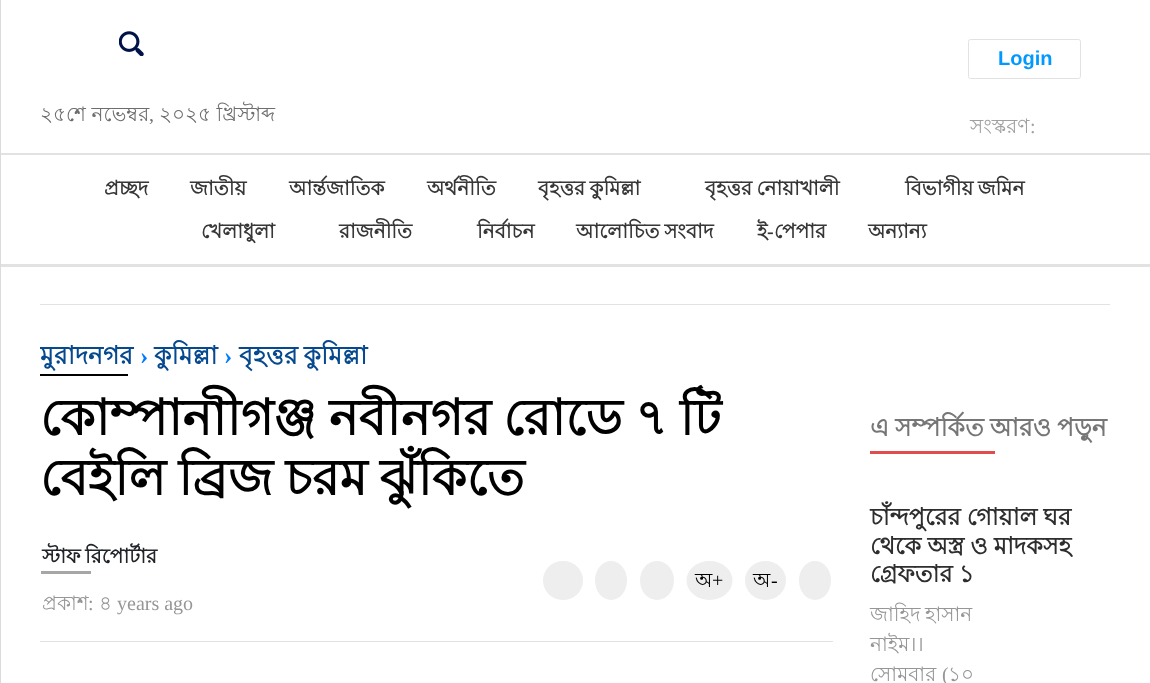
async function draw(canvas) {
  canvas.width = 1150
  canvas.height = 683
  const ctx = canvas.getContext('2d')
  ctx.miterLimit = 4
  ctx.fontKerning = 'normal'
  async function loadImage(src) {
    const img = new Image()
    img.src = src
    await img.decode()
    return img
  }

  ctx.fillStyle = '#fff'
  ctx.fillRect(0, 0, 1150, 683)
  ctx.fillStyle = '#e2e2e2'
  ctx.fillRect(0, 153, 1150, 2)
  ctx.fillRect(0, 264, 1150, 3)
  ctx.fillStyle = '#dbdbdb'
  ctx.fillRect(0, 0, 1, 683)
  ctx.drawImage(await loadImage('image0.png'), 119, 31, 25, 25)
  ctx.font = '20px Lohit Bengali'
  ctx.fillStyle = '#6d6d6d'
  ctx.fillText('২৫শে নভেম্বর', 40, 121)
  ctx.font = '20px Liberation Serif'
  ctx.fillText(',', 149, 121)
  ctx.font = '20px Lohit Bengali'
  ctx.fillText('২০২৫ খ্রিস্টাব্দ', 159, 121)
  ctx.beginPath()
  ctx.roundRect(968.5, 39.5, 112, 39, 2)
  ctx.strokeStyle = '#e2e2e2'
  ctx.stroke()
  ctx.font = 'bold 20px Liberation Sans'
  ctx.fillStyle = '#09f'
  ctx.fillText('Login', 998, 65)
  ctx.font = '20px Lohit Bengali'
  ctx.fillStyle = '#a0a0a0'
  ctx.fillText('সংস্করণ', 970, 133)
  ctx.font = '20px Liberation Serif'
  ctx.fillText(':', 1030, 133)
  ctx.font = 'bold 20px Lohit Bengali'
  ctx.fillStyle = '#373737'
  ctx.fillText('প্রচ্ছদ', 104, 195)
  ctx.fillText('জাতীয়', 190, 195)
  ctx.fillText('আর্ন্তজাতিক', 289, 195)
  ctx.fillText('অর্থনীতি', 427, 195)
  ctx.wordSpacing = '-1px'
  ctx.fillText('বৃহত্তর কুমিল্লা', 538, 195)
  ctx.fillText('বৃহত্তর নোয়াখালী', 705, 195)
  ctx.fillText('বিভাগীয় জমিন', 905, 195)
  ctx.wordSpacing = '0px'
  ctx.fillText('খেলাধুলা', 201, 238)
  ctx.fillText('রাজনীতি', 339, 238)
  ctx.fillText('নির্বাচন', 477, 238)
  ctx.wordSpacing = '-1px'
  ctx.fillText('আলোচিত সংবাদ', 576, 238)
  ctx.wordSpacing = '0px'
  ctx.fillText('ই', 757, 238)
  ctx.font = 'bold 20px Liberation Serif'
  ctx.fillText('-', 767, 238)
  ctx.font = 'bold 20px Lohit Bengali'
  ctx.fillText('পেপার', 774, 238)
  ctx.fillText('অন্যান্য', 868, 238)
  ctx.fillStyle = '#e2e2e2'
  ctx.fillRect(40, 304, 1070, 1)
  ctx.save()
  ctx.beginPath()
  ctx.rect(40, 336, 793, 40)
  ctx.clip()
  ctx.font = 'bold 25px Lohit Bengali'
  ctx.fillStyle = '#07498f'
  ctx.fillText('মুরাদনগর', 40, 364)
  ctx.restore()
  ctx.font = 'bold 25px Liberation Serif'
  ctx.fillStyle = '#007bff'
  ctx.fillText('›', 140, 364)
  ctx.font = 'bold 25px Lohit Bengali'
  ctx.fillStyle = '#07498f'
  ctx.fillText('কুমিল্লা', 154, 364)
  ctx.wordSpacing = '-1px'
  ctx.fillText('বৃহত্তর কুমিল্লা', 239, 364)
  ctx.wordSpacing = '0px'
  ctx.font = 'bold 25px Liberation Serif'
  ctx.fillStyle = '#007bff'
  ctx.fillText('›', 224, 364)
  ctx.fillStyle = '#000'
  ctx.fillRect(40, 374, 88, 2)
  ctx.wordSpacing = '-1.5px'
  ctx.font = 'bold 50px Lohit Bengali'
  ctx.fillText('কোম্পানাীগঞ্জ নবীনগর রোডে ৭ টি', 40, 435)
  ctx.fillText('বেইলি ব্রিজ চরম ঝুঁকিতে', 40, 495)
  ctx.fillStyle = '#e2e2e2'
  ctx.fillRect(40, 641, 793, 1)
  ctx.wordSpacing = '-1px'
  ctx.font = 'bold 20px Lohit Bengali'
  ctx.fillStyle = '#212529'
  ctx.fillText('স্টাফ রিপোর্টার', 42, 563)
  ctx.fillStyle = '#a7a6a6'
  ctx.fillRect(41, 571, 50, 3)
  ctx.wordSpacing = '0px'
  ctx.font = '20px Lohit Bengali'
  ctx.fillStyle = '#969696'
  ctx.fillText('প্রকাশ', 42, 610)
  ctx.font = '20px Liberation Serif'
  ctx.fillText(':', 88, 610)
  ctx.font = '20px Lohit Bengali'
  ctx.fillText('৪', 99, 610)
  ctx.font = '20px Liberation Serif'
  ctx.fillText('years ago', 117, 610)
  ctx.fillStyle = '#eee'
  ctx.beginPath()
  ctx.roundRect(543, 561, 40, 39, 19.5)
  ctx.fill()
  ctx.beginPath()
  ctx.ellipse(611, 580.5, 16, 19.5, 0, 0, 2 * Math.PI)
  ctx.fill()
  ctx.beginPath()
  ctx.ellipse(657, 580.5, 17, 19.5, 0, 0, 2 * Math.PI)
  ctx.fill()
  ctx.beginPath()
  ctx.ellipse(709.5, 580.5, 23, 19.5, 0, 0, 2 * Math.PI)
  ctx.fill()
  ctx.font = '20px Lohit Bengali'
  ctx.fillStyle = '#000'
  ctx.fillText('অ', 695, 587)
  ctx.font = '20px Liberation Serif'
  ctx.fillText('+', 712, 587)
  ctx.fillStyle = '#eee'
  ctx.beginPath()
  ctx.ellipse(765.5, 580.5, 20.5, 19.5, 0, 0, 2 * Math.PI)
  ctx.fill()
  ctx.font = '20px Lohit Bengali'
  ctx.fillStyle = '#000'
  ctx.fillText('অ', 753, 587)
  ctx.font = '20px Liberation Serif'
  ctx.fillText('-', 771, 587)
  ctx.fillStyle = '#eee'
  ctx.beginPath()
  ctx.ellipse(815, 580.5, 16, 19.5, 0, 0, 2 * Math.PI)
  ctx.fill()
  ctx.wordSpacing = '-1px'
  ctx.font = 'bold 25px Lohit Bengali'
  ctx.fillStyle = '#767676'
  ctx.fillText('এ সম্পর্কিত আরও পড়ুন', 870, 436)
  ctx.fillStyle = '#e14c4c'
  ctx.fillRect(870, 451, 125, 3)
  ctx.wordSpacing = '-0.5px'
  ctx.font = 'bold 23.75px Lohit Bengali'
  ctx.fillStyle = '#2e2e2e'
  ctx.fillText('চাঁন্দপুরের গোয়াল ঘর', 870, 525)
  ctx.fillText('থেকে অস্ত্র ও মাদকসহ', 870, 554)
  ctx.fillText('গ্রেফতার ১', 870, 582)
  ctx.wordSpacing = '-1px'
  ctx.font = '20px Lohit Bengali'
  ctx.fillStyle = '#969696'
  ctx.fillText('জাহিদ হাসান', 870, 621)
  ctx.wordSpacing = '0px'
  ctx.fillText('নাইম।।', 870, 651)
  ctx.fillText('সোমবার', 870, 681)
  ctx.font = '20px Liberation Serif'
  ctx.fillText('(', 942, 681)
  ctx.font = '20px Lohit Bengali'
  ctx.fillText('১০', 948, 681)
}

draw(document.querySelector('canvas'))
